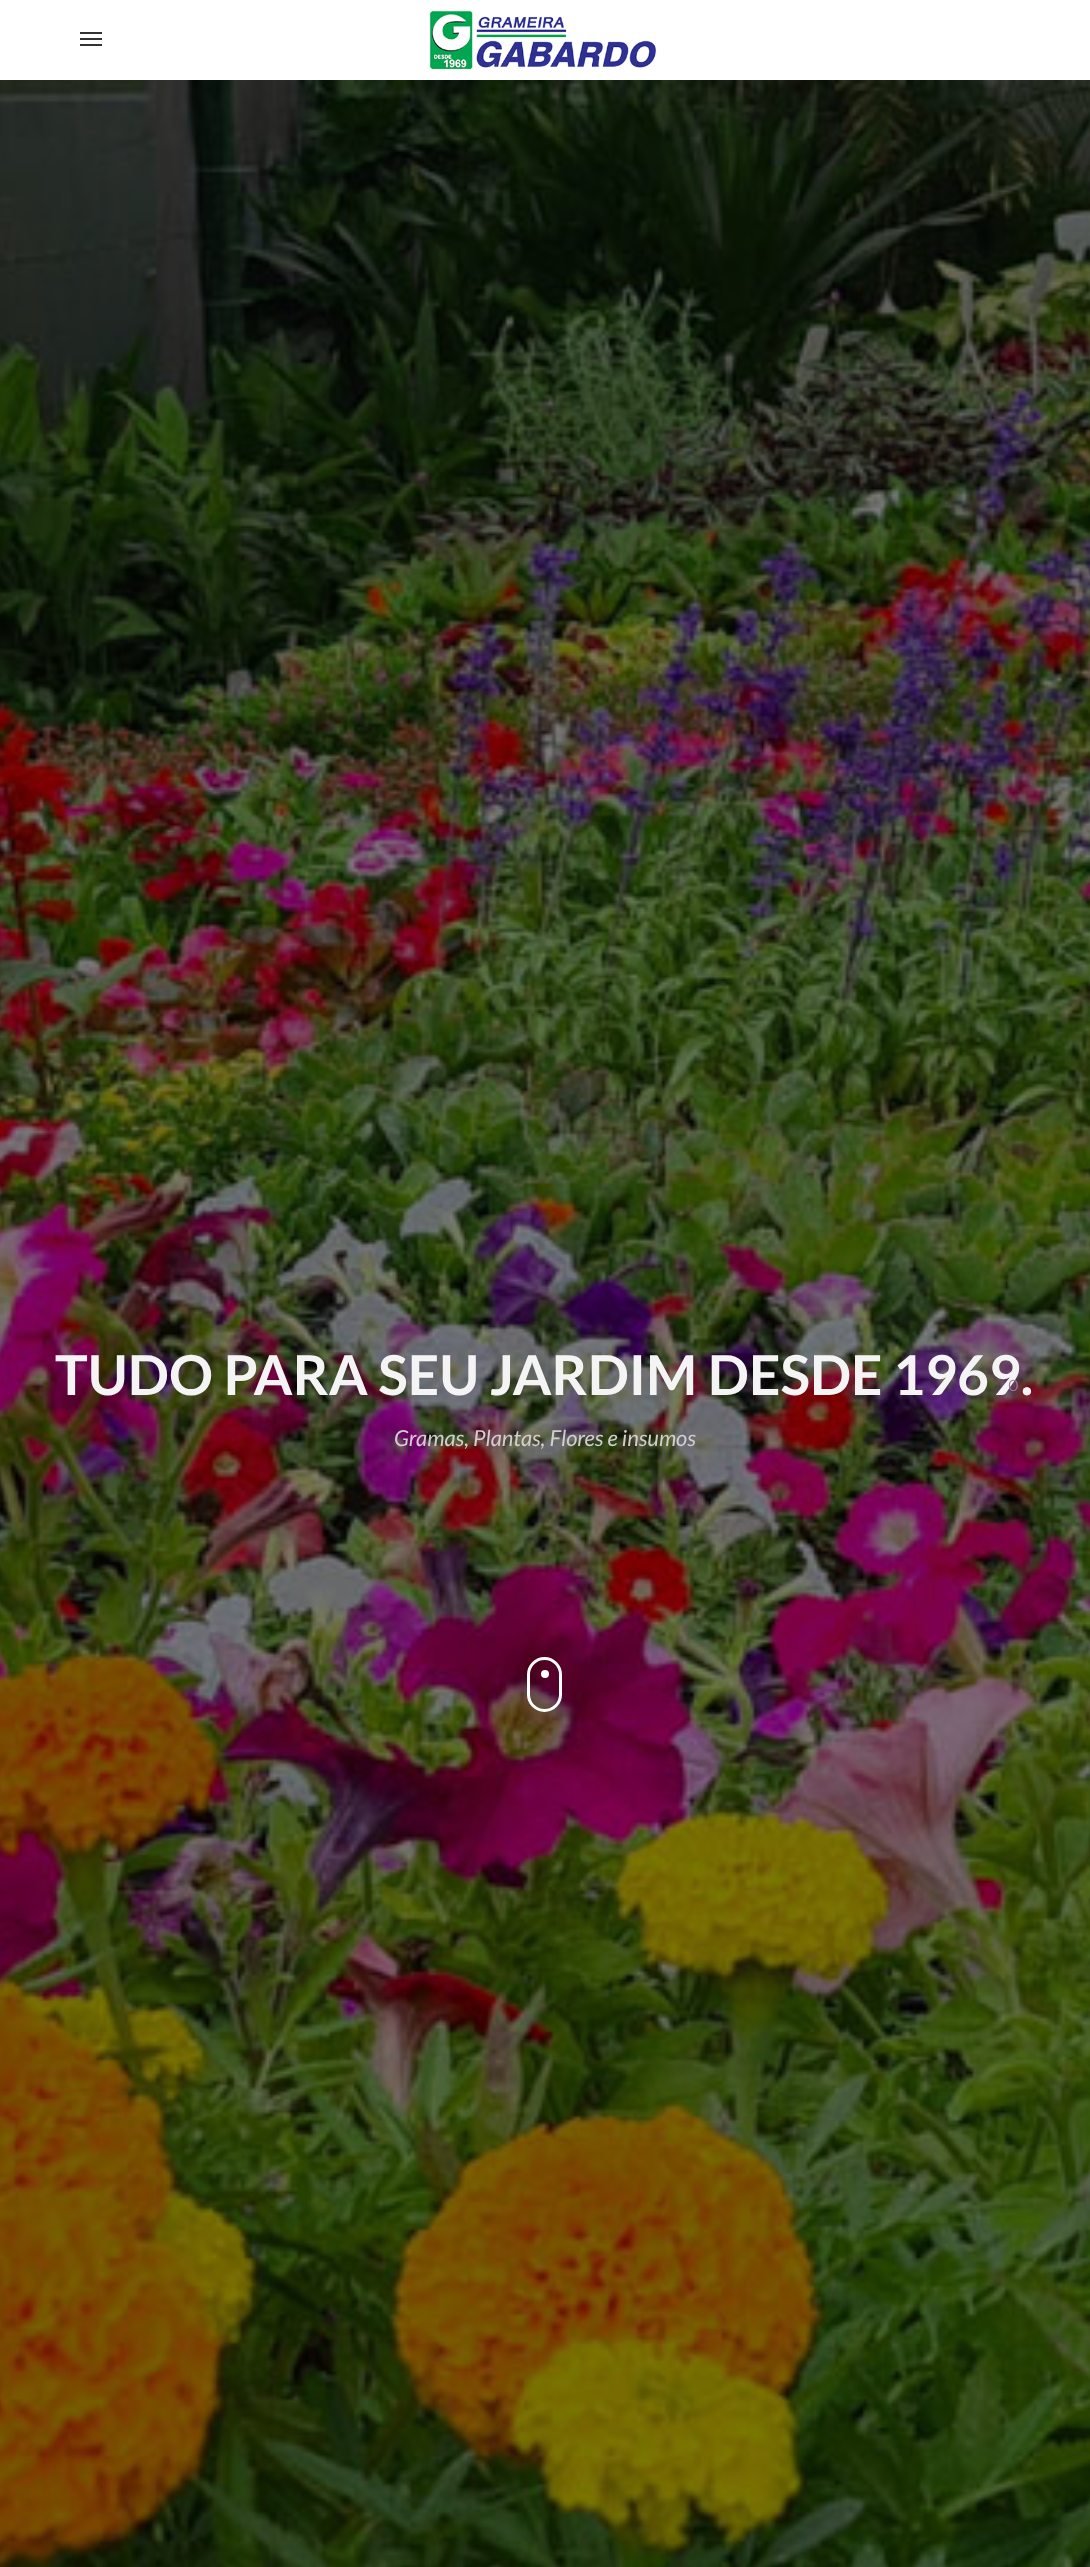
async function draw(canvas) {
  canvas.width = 1090
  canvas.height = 2567
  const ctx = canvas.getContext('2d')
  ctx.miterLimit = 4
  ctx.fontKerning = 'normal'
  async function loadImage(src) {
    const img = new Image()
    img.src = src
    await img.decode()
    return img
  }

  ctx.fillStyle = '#fff'
  ctx.fillRect(0, 0, 1090, 2567)
  ctx.fillStyle = '#333'
  ctx.fillRect(80, 38, 22, 2)
  ctx.fillRect(80, 32, 22, 2)
  ctx.fillRect(80, 44, 22, 2)
  ctx.drawImage(await loadImage('image0.png'), 429, 10, 228, 60)
  ctx.drawImage(await loadImage('image1.png'), 0, 80, 1090, 2487)
  ctx.font = 'bold 55px Lato'
  ctx.fillStyle = '#f5f4f4'
  ctx.fillText('TUDO PARA SEU JARDIM DESDE 1969.', 55, 1395)
  ctx.font = 'italic 22px Lato'
  ctx.fillStyle = '#d1cecd'
  ctx.fillText('Gramas, Plantas, Flores e insumos', 394, 1446)
  ctx.font = '16px Montserrat'
  ctx.fillStyle = '#9a818f'
  ctx.fillText('0', 1008, 1391)
  ctx.beginPath()
  ctx.roundRect(528.5, 1658.5, 32, 52, 16)
  ctx.strokeStyle = '#fff'
  ctx.lineWidth = 3
  ctx.stroke()
  ctx.fillStyle = '#fff'
  ctx.beginPath()
  ctx.arc(545, 1674, 4, 0, 2 * Math.PI)
  ctx.fill()
}

draw(document.querySelector('canvas'))
